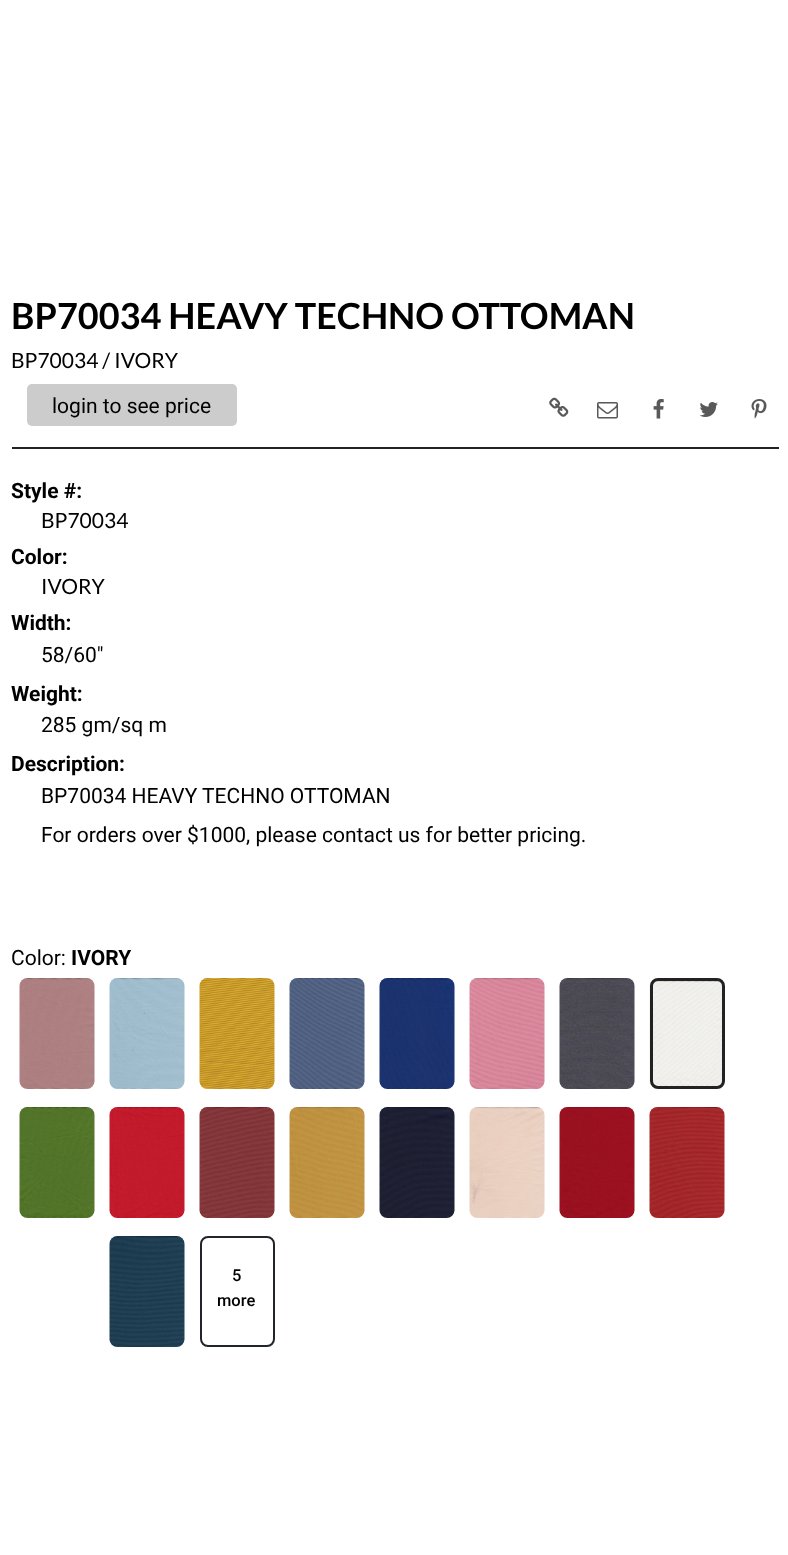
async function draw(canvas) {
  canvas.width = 788
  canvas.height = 1555
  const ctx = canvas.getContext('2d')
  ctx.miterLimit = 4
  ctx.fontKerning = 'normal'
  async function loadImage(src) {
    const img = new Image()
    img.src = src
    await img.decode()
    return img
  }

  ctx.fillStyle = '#fff'
  ctx.fillRect(0, 0, 788, 1555)
  ctx.font = 'bold 36px Lato'
  ctx.fillStyle = '#000'
  ctx.fillText('BP70034 HEAVY TECHNO OTTOMAN', 11, 329)
  ctx.font = '21px Lato'
  ctx.fillText('BP70034 / IVORY', 11, 368)
  ctx.fillStyle = '#ccc'
  ctx.beginPath()
  ctx.roundRect(27, 384, 210, 42, 5)
  ctx.fill()
  ctx.font = '21px Roboto'
  ctx.fillStyle = '#000'
  ctx.fillText('login to see price', 52, 413)
  ctx.drawImage(await loadImage('image0.png'), 549, 397, 20, 20)
  ctx.drawImage(await loadImage('image1.png'), 597, 402, 21, 17)
  ctx.drawImage(await loadImage('image2.png'), 653, 399, 11, 20)
  ctx.drawImage(await loadImage('image3.png'), 699, 402, 19, 15)
  ctx.drawImage(await loadImage('image4.png'), 751, 399, 16, 20)
  ctx.fillStyle = '#222'
  ctx.fillRect(12, 447, 767, 2)
  ctx.font = 'bold 21px Roboto'
  ctx.fillStyle = '#000'
  ctx.fillText('Style #:', 11, 498)
  ctx.font = '21px Lato'
  ctx.fillText('BP70034', 41, 528)
  ctx.font = 'bold 21px Roboto'
  ctx.fillText('Color:', 11, 564)
  ctx.font = '21px Lato'
  ctx.fillText('IVORY', 41, 594)
  ctx.font = 'bold 21px Roboto'
  ctx.fillText('Width:', 11, 630)
  ctx.font = '21px Roboto'
  ctx.fillText('58/60"', 41, 662)
  ctx.font = 'bold 21px Roboto'
  ctx.fillText('Weight:', 11, 701)
  ctx.font = '21px Roboto'
  ctx.fillText('285 gm/sq m', 41, 732)
  ctx.font = 'bold 21px Roboto'
  ctx.fillText('Description:', 11, 771)
  ctx.font = '21px Roboto'
  ctx.fillText('BP70034 HEAVY TECHNO OTTOMAN', 41, 803)
  ctx.fillText('For orders over $1000, please contact us for better pricing.', 41, 842)
  ctx.fillText('Color:', 11, 965)
  ctx.font = 'bold 21px Roboto'
  ctx.fillText('IVORY', 71, 965)
  ctx.drawImage(await loadImage('image5.png'), 19, 978, 76, 111)
  ctx.drawImage(await loadImage('image6.png'), 109, 978, 76, 111)
  ctx.drawImage(await loadImage('image7.png'), 199, 978, 76, 111)
  ctx.drawImage(await loadImage('image8.png'), 289, 978, 76, 111)
  ctx.drawImage(await loadImage('image9.png'), 379, 978, 76, 111)
  ctx.drawImage(await loadImage('image10.png'), 469, 978, 76, 111)
  ctx.drawImage(await loadImage('image11.png'), 559, 978, 76, 111)
  ctx.drawImage(await loadImage('image12.png'), 649, 981, 76, 105)
  ctx.beginPath()
  ctx.roundRect(651.5, 979.5, 72, 108, 6.5)
  ctx.strokeStyle = '#222'
  ctx.lineWidth = 3
  ctx.stroke()
  ctx.drawImage(await loadImage('image13.png'), 19, 1107, 76, 111)
  ctx.drawImage(await loadImage('image14.png'), 109, 1107, 76, 111)
  ctx.drawImage(await loadImage('image15.png'), 199, 1107, 76, 111)
  ctx.drawImage(await loadImage('image16.png'), 289, 1107, 76, 111)
  ctx.drawImage(await loadImage('image17.png'), 379, 1107, 76, 111)
  ctx.drawImage(await loadImage('image18.png'), 469, 1107, 76, 111)
  ctx.drawImage(await loadImage('image19.png'), 559, 1107, 76, 111)
  ctx.drawImage(await loadImage('image20.png'), 649, 1107, 76, 111)
  ctx.drawImage(await loadImage('image21.png'), 109, 1236, 76, 111)
  ctx.beginPath()
  ctx.roundRect(201, 1237, 73, 109, 7)
  ctx.strokeStyle = '#212529'
  ctx.lineWidth = 2
  ctx.stroke()
  ctx.font = '500 16.5px Roboto'
  ctx.fillText('5', 232, 1281)
  ctx.fillText('more', 217, 1306)
}

draw(document.querySelector('canvas'))
